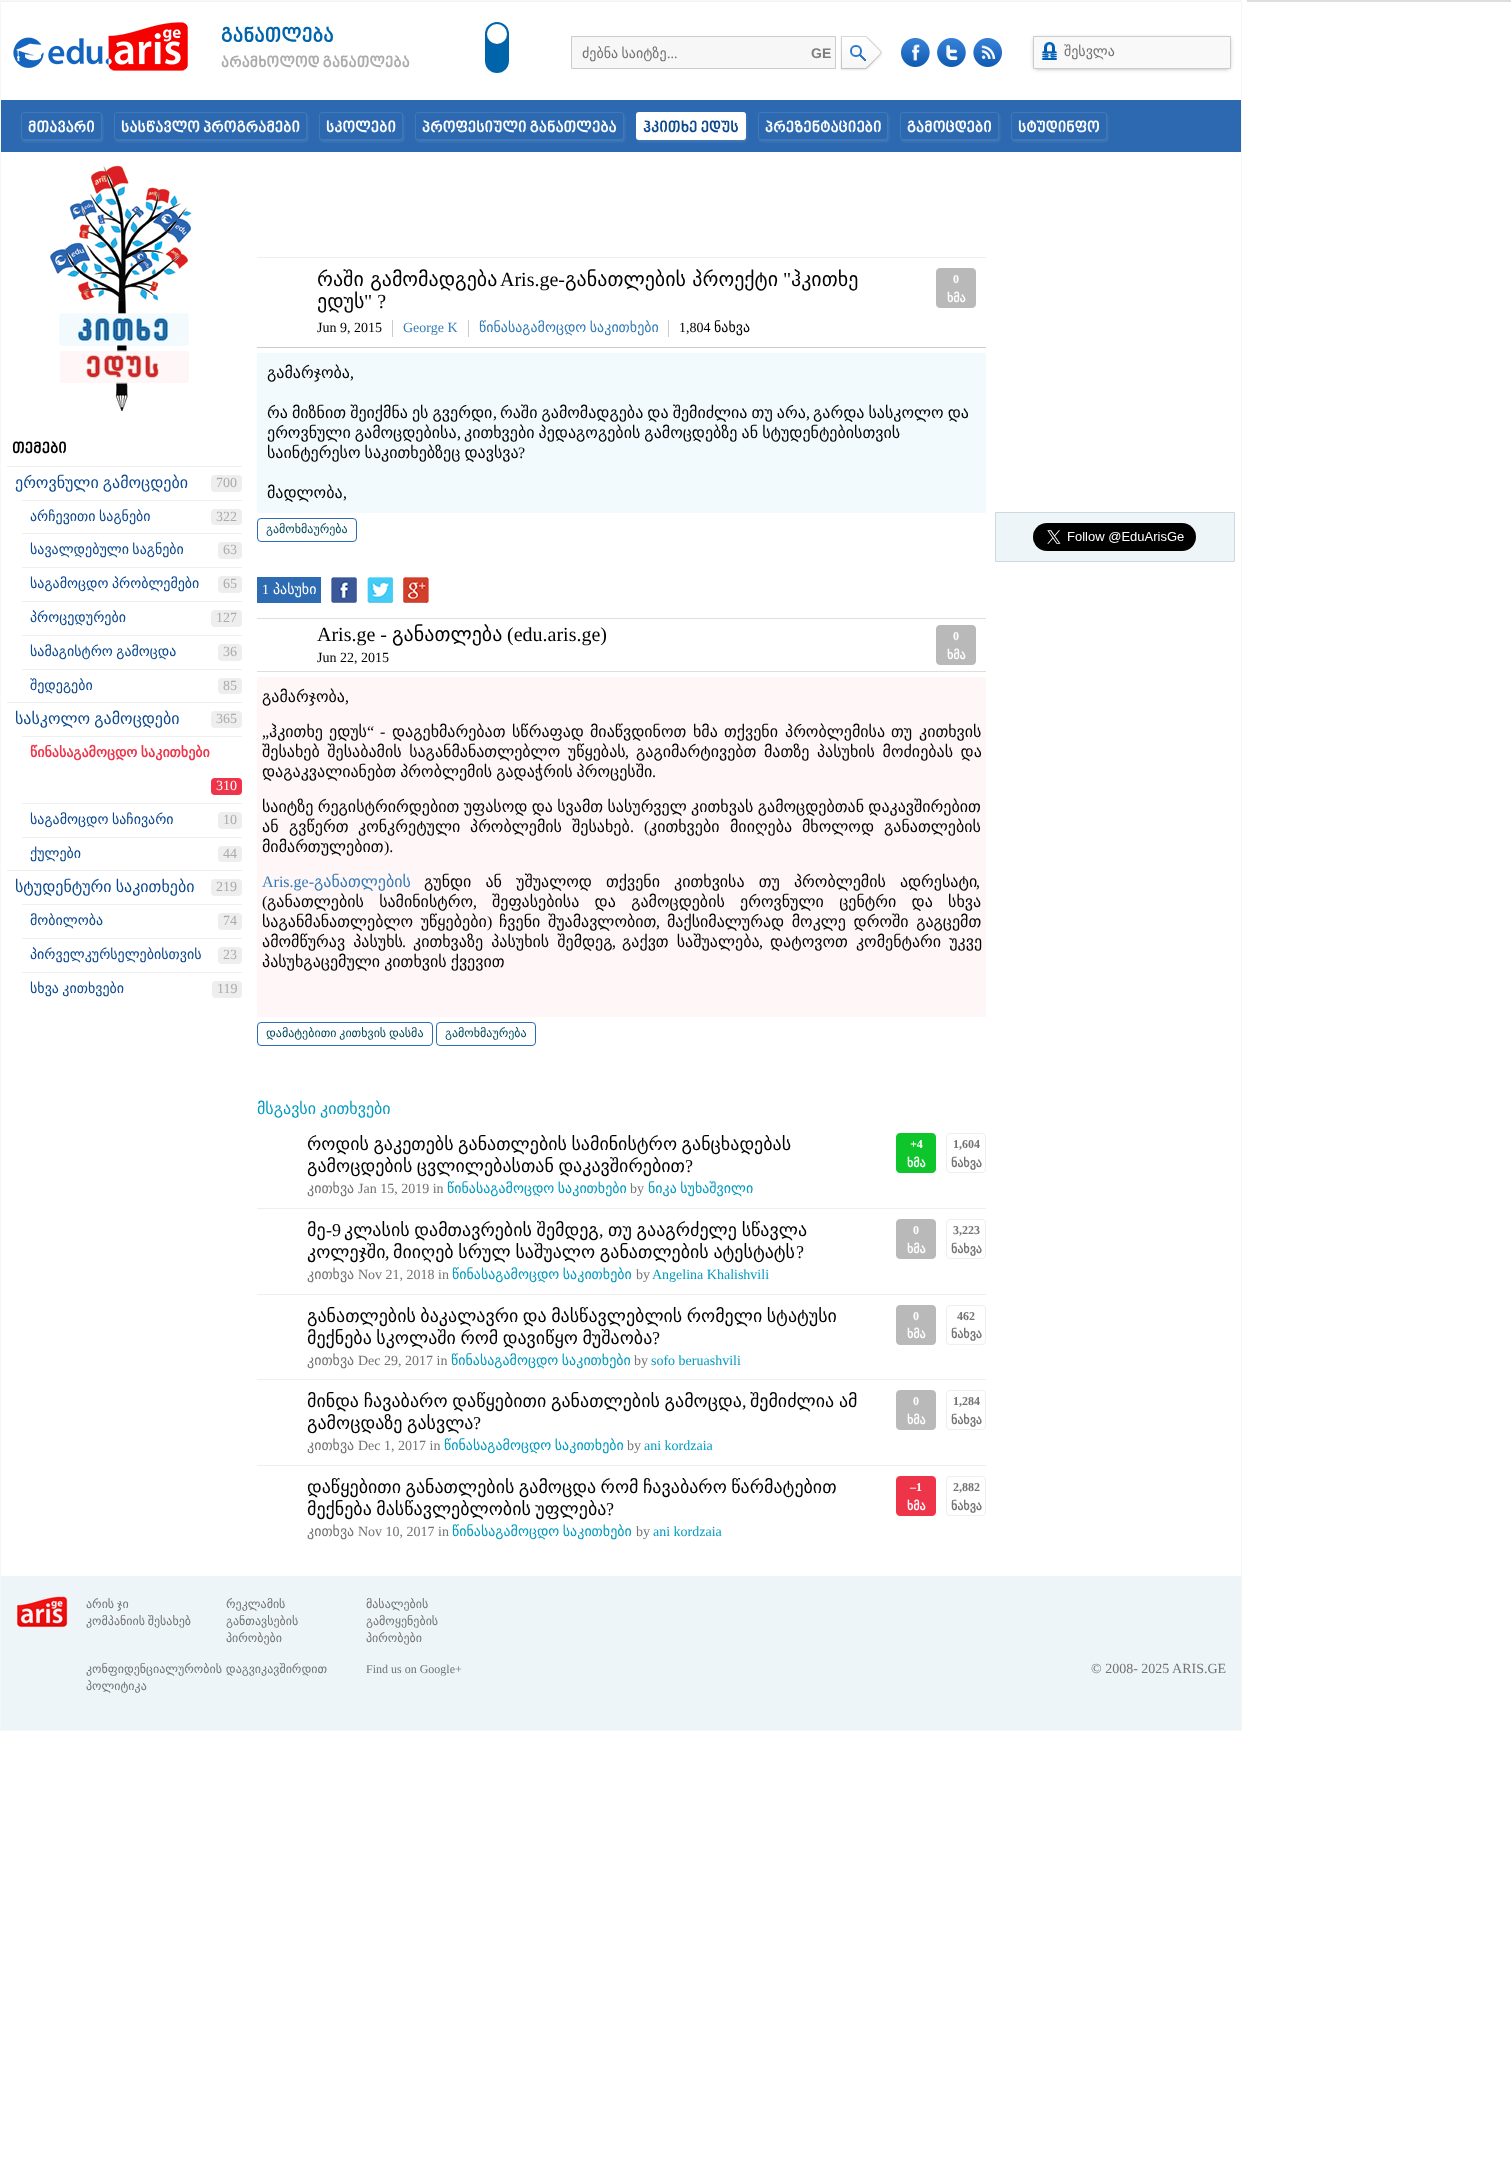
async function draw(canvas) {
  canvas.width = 1511
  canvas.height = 2163
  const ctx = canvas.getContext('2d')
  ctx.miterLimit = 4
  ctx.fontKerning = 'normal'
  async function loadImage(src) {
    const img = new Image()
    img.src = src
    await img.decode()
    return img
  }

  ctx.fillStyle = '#fff'
  ctx.fillRect(0, 0, 1511, 2163)
  ctx.fillStyle = '#dedede'
  ctx.fillRect(1247, 0, 264, 2)
  ctx.strokeStyle = '#f7f7f7'
  ctx.strokeRect(0.5, 0.5, 1241, 1730)
  ctx.fillStyle = '#edf5f9'
  ctx.fillRect(1, 1, 1240, 1)
  ctx.drawImage(await loadImage('image0.png'), 13, 22, 175, 49)
  ctx.font = 'italic bold 20.75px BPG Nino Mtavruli'
  ctx.fillStyle = '#0064ab'
  ctx.fillText('განათლება', 221, 43)
  ctx.beginPath()
  ctx.roundRect(485, 22, 24, 51, 12)
  ctx.fill()
  ctx.fillStyle = '#fff'
  ctx.beginPath()
  ctx.arc(497, 34, 10, 0, 2 * Math.PI)
  ctx.fill()
  ctx.font = 'italic bold 16px BPG Nino Mtavruli'
  ctx.fillStyle = '#ababab'
  ctx.fillText('არამხოლოდ განათლება', 221, 68)
  ctx.fillStyle = '#f7f7f7'
  ctx.beginPath()
  ctx.rect(571.5, 36.5, 264, 32)
  ctx.fill()
  ctx.strokeStyle = '#ccc'
  ctx.stroke()
  ctx.wordSpacing = '-1px'
  ctx.font = '14px DejaVu Sans'
  ctx.fillStyle = '#737373'
  ctx.fillText('ძებნა საიტზე', 582, 58)
  ctx.wordSpacing = '0px'
  ctx.font = '14px Liberation Serif'
  ctx.fillText('...', 667, 58)
  ctx.font = 'bold 14px Liberation Sans'
  ctx.fillStyle = '#7d7d7d'
  ctx.fillText('GE', 811, 58)
  ctx.drawImage(await loadImage('image1.png'), 840, 36, 42, 35)
  ctx.drawImage(await loadImage('image2.png'), 901, 38, 29, 29)
  ctx.drawImage(await loadImage('image3.png'), 937, 38, 29, 29)
  ctx.drawImage(await loadImage('image4.png'), 973, 38, 29, 29)
  ctx.fillStyle = '#888'
  ctx.filter = 'blur(2.5px)'
  ctx.beginPath()
  ctx.rect(1035, 39, 194, 29)
  ctx.fill()
  ctx.filter = 'none'
  ctx.fillStyle = '#f9f9f9'
  ctx.beginPath()
  ctx.rect(1033.5, 36.5, 197, 32)
  ctx.fill()
  ctx.stroke()
  ctx.drawImage(await loadImage('image5.png'), 1042, 42, 15, 18)
  ctx.font = '14px DejaVu Sans'
  ctx.fillStyle = '#737373'
  ctx.fillText('შესვლა', 1064, 56)
  ctx.fillStyle = '#2c69b0'
  ctx.fillRect(1, 100, 1240, 52)
  ctx.save()
  ctx.beginPath()
  ctx.moveTo(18, 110)
  ctx.lineTo(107, 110)
  ctx.lineTo(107, 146)
  ctx.lineTo(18, 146)
  ctx.closePath()
  ctx.moveTo(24, 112)
  ctx.lineTo(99, 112)
  ctx.bezierCurveTo(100.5, 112, 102, 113.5, 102, 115)
  ctx.lineTo(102, 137)
  ctx.bezierCurveTo(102, 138.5, 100.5, 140, 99, 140)
  ctx.lineTo(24, 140)
  ctx.bezierCurveTo(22.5, 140, 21, 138.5, 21, 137)
  ctx.lineTo(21, 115)
  ctx.bezierCurveTo(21, 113.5, 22.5, 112, 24, 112)
  ctx.closePath()
  ctx.clip('evenodd')
  ctx.fillStyle = '#ffffff1a'
  ctx.filter = 'blur(1px)'
  ctx.beginPath()
  ctx.roundRect(22, 114, 81, 28, 3)
  ctx.fill()
  ctx.filter = 'none'
  ctx.restore()
  ctx.beginPath()
  ctx.roundRect(21.5, 112.5, 80, 27, 2.5)
  ctx.strokeStyle = '#ffffff1a'
  ctx.stroke()
  ctx.font = 'italic bold 16px BPG Nino Mtavruli'
  ctx.fillStyle = '#fff'
  ctx.fillText('მთავარი', 28, 133)
  ctx.save()
  ctx.beginPath()
  ctx.moveTo(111, 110)
  ctx.lineTo(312, 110)
  ctx.lineTo(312, 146)
  ctx.lineTo(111, 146)
  ctx.closePath()
  ctx.moveTo(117, 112)
  ctx.lineTo(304, 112)
  ctx.bezierCurveTo(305.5, 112, 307, 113.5, 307, 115)
  ctx.lineTo(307, 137)
  ctx.bezierCurveTo(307, 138.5, 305.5, 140, 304, 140)
  ctx.lineTo(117, 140)
  ctx.bezierCurveTo(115.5, 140, 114, 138.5, 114, 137)
  ctx.lineTo(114, 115)
  ctx.bezierCurveTo(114, 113.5, 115.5, 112, 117, 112)
  ctx.closePath()
  ctx.clip('evenodd')
  ctx.fillStyle = '#ffffff1a'
  ctx.filter = 'blur(1px)'
  ctx.beginPath()
  ctx.roundRect(115, 114, 193, 28, 3)
  ctx.fill()
  ctx.filter = 'none'
  ctx.restore()
  ctx.beginPath()
  ctx.roundRect(114.5, 112.5, 192, 27, 2.5)
  ctx.stroke()
  ctx.fillText('სასწავლო პროგრამები', 121, 133)
  ctx.save()
  ctx.beginPath()
  ctx.moveTo(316, 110)
  ctx.lineTo(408, 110)
  ctx.lineTo(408, 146)
  ctx.lineTo(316, 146)
  ctx.closePath()
  ctx.moveTo(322, 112)
  ctx.lineTo(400, 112)
  ctx.bezierCurveTo(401.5, 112, 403, 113.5, 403, 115)
  ctx.lineTo(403, 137)
  ctx.bezierCurveTo(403, 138.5, 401.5, 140, 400, 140)
  ctx.lineTo(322, 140)
  ctx.bezierCurveTo(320.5, 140, 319, 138.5, 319, 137)
  ctx.lineTo(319, 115)
  ctx.bezierCurveTo(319, 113.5, 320.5, 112, 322, 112)
  ctx.closePath()
  ctx.clip('evenodd')
  ctx.fillStyle = '#ffffff1a'
  ctx.filter = 'blur(1px)'
  ctx.beginPath()
  ctx.roundRect(320, 114, 84, 28, 3)
  ctx.fill()
  ctx.filter = 'none'
  ctx.restore()
  ctx.beginPath()
  ctx.roundRect(319.5, 112.5, 83, 27, 2.5)
  ctx.stroke()
  ctx.fillText('სკოლები', 326, 133)
  ctx.save()
  ctx.beginPath()
  ctx.moveTo(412, 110)
  ctx.lineTo(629, 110)
  ctx.lineTo(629, 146)
  ctx.lineTo(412, 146)
  ctx.closePath()
  ctx.moveTo(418, 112)
  ctx.lineTo(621, 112)
  ctx.bezierCurveTo(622.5, 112, 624, 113.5, 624, 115)
  ctx.lineTo(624, 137)
  ctx.bezierCurveTo(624, 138.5, 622.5, 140, 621, 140)
  ctx.lineTo(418, 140)
  ctx.bezierCurveTo(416.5, 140, 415, 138.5, 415, 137)
  ctx.lineTo(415, 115)
  ctx.bezierCurveTo(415, 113.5, 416.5, 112, 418, 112)
  ctx.closePath()
  ctx.clip('evenodd')
  ctx.fillStyle = '#ffffff1a'
  ctx.filter = 'blur(1px)'
  ctx.beginPath()
  ctx.roundRect(416, 114, 209, 28, 3)
  ctx.fill()
  ctx.filter = 'none'
  ctx.restore()
  ctx.beginPath()
  ctx.roundRect(415.5, 112.5, 208, 27, 2.5)
  ctx.stroke()
  ctx.fillText('პროფესიული განათლება', 422, 133)
  ctx.fillStyle = '#ffffff1a'
  ctx.filter = 'blur(1px)'
  ctx.beginPath()
  ctx.roundRect(637, 114, 110, 28, 3)
  ctx.fill()
  ctx.filter = 'none'
  ctx.fillStyle = '#fff'
  ctx.beginPath()
  ctx.roundRect(636, 112, 110, 28, 3)
  ctx.fill()
  ctx.beginPath()
  ctx.roundRect(636.5, 112.5, 109, 27, 2.5)
  ctx.stroke()
  ctx.fillStyle = '#0c488e'
  ctx.fillText('ჰკითხე ედუს', 643, 133)
  ctx.save()
  ctx.beginPath()
  ctx.moveTo(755, 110)
  ctx.lineTo(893, 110)
  ctx.lineTo(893, 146)
  ctx.lineTo(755, 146)
  ctx.closePath()
  ctx.moveTo(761, 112)
  ctx.lineTo(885, 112)
  ctx.bezierCurveTo(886.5, 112, 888, 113.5, 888, 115)
  ctx.lineTo(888, 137)
  ctx.bezierCurveTo(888, 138.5, 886.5, 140, 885, 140)
  ctx.lineTo(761, 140)
  ctx.bezierCurveTo(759.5, 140, 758, 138.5, 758, 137)
  ctx.lineTo(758, 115)
  ctx.bezierCurveTo(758, 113.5, 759.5, 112, 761, 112)
  ctx.closePath()
  ctx.clip('evenodd')
  ctx.fillStyle = '#ffffff1a'
  ctx.filter = 'blur(1px)'
  ctx.beginPath()
  ctx.roundRect(759, 114, 130, 28, 3)
  ctx.fill()
  ctx.filter = 'none'
  ctx.restore()
  ctx.beginPath()
  ctx.roundRect(758.5, 112.5, 129, 27, 2.5)
  ctx.stroke()
  ctx.fillStyle = '#fff'
  ctx.fillText('პრეზენტაციები', 765, 133)
  ctx.save()
  ctx.beginPath()
  ctx.moveTo(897, 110)
  ctx.lineTo(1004, 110)
  ctx.lineTo(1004, 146)
  ctx.lineTo(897, 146)
  ctx.closePath()
  ctx.moveTo(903, 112)
  ctx.lineTo(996, 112)
  ctx.bezierCurveTo(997.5, 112, 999, 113.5, 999, 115)
  ctx.lineTo(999, 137)
  ctx.bezierCurveTo(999, 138.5, 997.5, 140, 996, 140)
  ctx.lineTo(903, 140)
  ctx.bezierCurveTo(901.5, 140, 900, 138.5, 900, 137)
  ctx.lineTo(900, 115)
  ctx.bezierCurveTo(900, 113.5, 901.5, 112, 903, 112)
  ctx.closePath()
  ctx.clip('evenodd')
  ctx.fillStyle = '#ffffff1a'
  ctx.filter = 'blur(1px)'
  ctx.beginPath()
  ctx.roundRect(901, 114, 99, 28, 3)
  ctx.fill()
  ctx.filter = 'none'
  ctx.restore()
  ctx.beginPath()
  ctx.roundRect(900.5, 112.5, 98, 27, 2.5)
  ctx.stroke()
  ctx.fillText('გამოცდები', 907, 133)
  ctx.save()
  ctx.beginPath()
  ctx.moveTo(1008, 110)
  ctx.lineTo(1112, 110)
  ctx.lineTo(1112, 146)
  ctx.lineTo(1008, 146)
  ctx.closePath()
  ctx.moveTo(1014, 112)
  ctx.lineTo(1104, 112)
  ctx.bezierCurveTo(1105.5, 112, 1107, 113.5, 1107, 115)
  ctx.lineTo(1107, 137)
  ctx.bezierCurveTo(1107, 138.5, 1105.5, 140, 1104, 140)
  ctx.lineTo(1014, 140)
  ctx.bezierCurveTo(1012.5, 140, 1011, 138.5, 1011, 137)
  ctx.lineTo(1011, 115)
  ctx.bezierCurveTo(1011, 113.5, 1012.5, 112, 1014, 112)
  ctx.closePath()
  ctx.clip('evenodd')
  ctx.fillStyle = '#ffffff1a'
  ctx.filter = 'blur(1px)'
  ctx.beginPath()
  ctx.roundRect(1012, 114, 96, 28, 3)
  ctx.fill()
  ctx.filter = 'none'
  ctx.restore()
  ctx.beginPath()
  ctx.roundRect(1011.5, 112.5, 95, 27, 2.5)
  ctx.stroke()
  ctx.fillText('სტუდინფო', 1018, 133)
  ctx.drawImage(await loadImage('image6.png'), 50, 165, 142, 247)
  ctx.fillStyle = '#000'
  ctx.fillText('თემები', 12, 454)
  ctx.fillStyle = '#eee'
  ctx.fillRect(7, 466, 235, 1)
  ctx.wordSpacing = '-1px'
  ctx.font = '16px DejaVu Sans'
  ctx.fillStyle = '#0c488e'
  ctx.fillText('ეროვნული გამოცდები', 15, 488)
  ctx.fillStyle = '#eee'
  ctx.beginPath()
  ctx.roundRect(211, 475, 31, 17, 4)
  ctx.fill()
  ctx.wordSpacing = '0px'
  ctx.font = '14px Liberation Serif'
  ctx.fillStyle = '#ababab'
  ctx.fillText('700', 216, 487)
  ctx.fillStyle = '#eee'
  ctx.fillRect(22, 500, 220, 1)
  ctx.wordSpacing = '-1px'
  ctx.font = '14px DejaVu Sans'
  ctx.fillStyle = '#0c488e'
  ctx.fillText('არჩევითი საგნები', 30, 521)
  ctx.fillStyle = '#eee'
  ctx.beginPath()
  ctx.roundRect(211, 509, 31, 16, 4)
  ctx.fill()
  ctx.wordSpacing = '0px'
  ctx.font = '14px Liberation Serif'
  ctx.fillStyle = '#ababab'
  ctx.fillText('322', 216, 521)
  ctx.fillStyle = '#eee'
  ctx.fillRect(22, 533, 220, 1)
  ctx.wordSpacing = '-1px'
  ctx.font = '14px DejaVu Sans'
  ctx.fillStyle = '#0c488e'
  ctx.fillText('სავალდებული საგნები', 30, 554)
  ctx.fillStyle = '#eee'
  ctx.beginPath()
  ctx.roundRect(218, 542, 24, 17, 4)
  ctx.fill()
  ctx.wordSpacing = '0px'
  ctx.font = '14px Liberation Serif'
  ctx.fillStyle = '#ababab'
  ctx.fillText('63', 223, 554)
  ctx.fillStyle = '#eee'
  ctx.fillRect(22, 567, 220, 1)
  ctx.wordSpacing = '-1px'
  ctx.font = '14px DejaVu Sans'
  ctx.fillStyle = '#0c488e'
  ctx.fillText('საგამოცდო პრობლემები', 30, 588)
  ctx.fillStyle = '#eee'
  ctx.beginPath()
  ctx.roundRect(218, 576, 24, 17, 4)
  ctx.fill()
  ctx.wordSpacing = '0px'
  ctx.font = '14px Liberation Serif'
  ctx.fillStyle = '#ababab'
  ctx.fillText('65', 223, 588)
  ctx.fillStyle = '#eee'
  ctx.fillRect(22, 601, 220, 1)
  ctx.font = '14px DejaVu Sans'
  ctx.fillStyle = '#0c488e'
  ctx.fillText('პროცედურები', 30, 622)
  ctx.fillStyle = '#eee'
  ctx.beginPath()
  ctx.roundRect(211, 610, 31, 17, 4)
  ctx.fill()
  ctx.font = '14px Liberation Serif'
  ctx.fillStyle = '#ababab'
  ctx.fillText('127', 216, 622)
  ctx.fillStyle = '#eee'
  ctx.fillRect(22, 635, 220, 1)
  ctx.wordSpacing = '-1px'
  ctx.font = '14px DejaVu Sans'
  ctx.fillStyle = '#0c488e'
  ctx.fillText('სამაგისტრო გამოცდა', 30, 656)
  ctx.fillStyle = '#eee'
  ctx.beginPath()
  ctx.roundRect(218, 644, 24, 17, 4)
  ctx.fill()
  ctx.wordSpacing = '0px'
  ctx.font = '14px Liberation Serif'
  ctx.fillStyle = '#ababab'
  ctx.fillText('36', 223, 656)
  ctx.fillStyle = '#eee'
  ctx.fillRect(22, 669, 220, 1)
  ctx.font = '14px DejaVu Sans'
  ctx.fillStyle = '#0c488e'
  ctx.fillText('შედეგები', 30, 690)
  ctx.fillStyle = '#eee'
  ctx.beginPath()
  ctx.roundRect(218, 678, 24, 16, 4)
  ctx.fill()
  ctx.font = '14px Liberation Serif'
  ctx.fillStyle = '#ababab'
  ctx.fillText('85', 223, 690)
  ctx.fillStyle = '#eee'
  ctx.fillRect(7, 702, 235, 1)
  ctx.wordSpacing = '-1px'
  ctx.font = '16px DejaVu Sans'
  ctx.fillStyle = '#0c488e'
  ctx.fillText('სასკოლო გამოცდები', 15, 724)
  ctx.fillStyle = '#eee'
  ctx.beginPath()
  ctx.roundRect(211, 711, 31, 17, 4)
  ctx.fill()
  ctx.wordSpacing = '0px'
  ctx.font = '14px Liberation Serif'
  ctx.fillStyle = '#ababab'
  ctx.fillText('365', 216, 723)
  ctx.fillStyle = '#eee'
  ctx.fillRect(22, 736, 220, 1)
  ctx.wordSpacing = '-1px'
  ctx.font = 'bold 14px DejaVu Sans'
  ctx.fillStyle = '#ed3449'
  ctx.fillText('წინასაგამოცდო საკითხები', 30, 757)
  ctx.beginPath()
  ctx.roundRect(211, 778, 31, 17, 4)
  ctx.fill()
  ctx.wordSpacing = '0px'
  ctx.font = '14px Liberation Serif'
  ctx.fillStyle = '#fff'
  ctx.fillText('310', 216, 790)
  ctx.fillStyle = '#eee'
  ctx.fillRect(22, 803, 220, 1)
  ctx.wordSpacing = '-1px'
  ctx.font = '14px DejaVu Sans'
  ctx.fillStyle = '#0c488e'
  ctx.fillText('საგამოცდო საჩივარი', 30, 824)
  ctx.fillStyle = '#eee'
  ctx.beginPath()
  ctx.roundRect(218, 812, 24, 17, 4)
  ctx.fill()
  ctx.wordSpacing = '0px'
  ctx.font = '14px Liberation Serif'
  ctx.fillStyle = '#ababab'
  ctx.fillText('10', 223, 824)
  ctx.fillStyle = '#eee'
  ctx.fillRect(22, 837, 220, 1)
  ctx.font = '14px DejaVu Sans'
  ctx.fillStyle = '#0c488e'
  ctx.fillText('ქულები', 30, 858)
  ctx.fillStyle = '#eee'
  ctx.beginPath()
  ctx.roundRect(218, 846, 24, 16, 4)
  ctx.fill()
  ctx.font = '14px Liberation Serif'
  ctx.fillStyle = '#ababab'
  ctx.fillText('44', 223, 858)
  ctx.fillStyle = '#eee'
  ctx.fillRect(7, 870, 235, 1)
  ctx.wordSpacing = '-1px'
  ctx.font = '16px DejaVu Sans'
  ctx.fillStyle = '#0c488e'
  ctx.fillText('სტუდენტური საკითხები', 15, 892)
  ctx.fillStyle = '#eee'
  ctx.beginPath()
  ctx.roundRect(211, 879, 31, 17, 4)
  ctx.fill()
  ctx.wordSpacing = '0px'
  ctx.font = '14px Liberation Serif'
  ctx.fillStyle = '#ababab'
  ctx.fillText('219', 216, 891)
  ctx.fillStyle = '#eee'
  ctx.fillRect(22, 904, 220, 1)
  ctx.font = '14px DejaVu Sans'
  ctx.fillStyle = '#0c488e'
  ctx.fillText('მობილობა', 30, 925)
  ctx.fillStyle = '#eee'
  ctx.beginPath()
  ctx.roundRect(218, 913, 24, 17, 4)
  ctx.fill()
  ctx.font = '14px Liberation Serif'
  ctx.fillStyle = '#ababab'
  ctx.fillText('74', 223, 925)
  ctx.fillStyle = '#eee'
  ctx.fillRect(22, 938, 220, 1)
  ctx.font = '14px DejaVu Sans'
  ctx.fillStyle = '#0c488e'
  ctx.fillText('პირველკურსელებისთვის', 30, 959)
  ctx.fillStyle = '#eee'
  ctx.beginPath()
  ctx.roundRect(218, 947, 24, 17, 4)
  ctx.fill()
  ctx.font = '14px Liberation Serif'
  ctx.fillStyle = '#ababab'
  ctx.fillText('23', 223, 959)
  ctx.fillStyle = '#eee'
  ctx.fillRect(22, 972, 220, 1)
  ctx.wordSpacing = '-1px'
  ctx.font = '14px DejaVu Sans'
  ctx.fillStyle = '#0c488e'
  ctx.fillText('სხვა კითხვები', 30, 993)
  ctx.fillStyle = '#eee'
  ctx.beginPath()
  ctx.roundRect(212, 981, 30, 17, 4)
  ctx.fill()
  ctx.wordSpacing = '0px'
  ctx.font = '14px Liberation Serif'
  ctx.fillStyle = '#ababab'
  ctx.fillText('119', 217, 993)
  ctx.fillStyle = '#eee'
  ctx.fillRect(257, 257, 729, 1)
  ctx.fillStyle = '#ccc'
  ctx.fillRect(257, 347, 729, 1)
  ctx.font = '20px DejaVu Sans'
  ctx.fillStyle = '#000'
  ctx.fillText('რაში გამომადგება', 317, 286)
  ctx.font = '20px Liberation Serif'
  ctx.fillText('Aris.ge-', 500, 286)
  ctx.font = '20px DejaVu Sans'
  ctx.fillText('განათლების პროექტი', 565, 286)
  ctx.font = '20px Liberation Serif'
  ctx.fillText('"', 783, 286)
  ctx.font = '20px DejaVu Sans'
  ctx.fillText('ჰკითხე', 791, 286)
  ctx.fillText('ედუს', 317, 308)
  ctx.font = '20px Liberation Serif'
  ctx.fillText('" ?', 364, 308)
  ctx.fillStyle = '#ccc'
  ctx.fillRect(392, 320, 1, 17)
  ctx.font = '14px Liberation Serif'
  ctx.fillStyle = '#000'
  ctx.fillText('Jun 9, 2015', 317, 332)
  ctx.fillStyle = '#ccc'
  ctx.fillRect(468, 320, 1, 17)
  ctx.fillStyle = '#337ab7'
  ctx.fillText('George K', 403, 332)
  ctx.fillStyle = '#ccc'
  ctx.fillRect(668, 320, 1, 17)
  ctx.wordSpacing = '-1px'
  ctx.font = '14px DejaVu Sans'
  ctx.fillStyle = '#337ab7'
  ctx.fillText('წინასაგამოცდო საკითხები', 479, 332)
  ctx.wordSpacing = '0px'
  ctx.font = '14px Liberation Serif'
  ctx.fillStyle = '#000'
  ctx.fillText('1,804', 679, 332)
  ctx.font = '14px DejaVu Sans'
  ctx.fillText('ნახვა', 714, 332)
  ctx.fillStyle = '#f2fafe'
  ctx.fillRect(257, 353, 729, 160)
  ctx.font = '16px DejaVu Sans'
  ctx.fillStyle = '#000'
  ctx.fillText('გამარჯობა', 267, 378)
  ctx.font = '16px Liberation Serif'
  ctx.fillText(',', 350, 378)
  ctx.wordSpacing = '-1px'
  ctx.font = '16px DejaVu Sans'
  ctx.fillText('რა მიზნით შეიქმნა ეს გვერდი', 267, 418)
  ctx.wordSpacing = '0px'
  ctx.font = '16px Liberation Serif'
  ctx.fillText(',', 493, 418)
  ctx.wordSpacing = '-1px'
  ctx.font = '16px DejaVu Sans'
  ctx.fillText('რაში გამომადგება და შემიძლია თუ არა', 500, 418)
  ctx.wordSpacing = '0px'
  ctx.font = '16px Liberation Serif'
  ctx.fillText(',', 806, 418)
  ctx.wordSpacing = '-1px'
  ctx.font = '16px DejaVu Sans'
  ctx.fillText('გარდა სასკოლო და', 813, 418)
  ctx.fillText('ეროვნული გამოცდებისა', 267, 438)
  ctx.wordSpacing = '0px'
  ctx.font = '16px Liberation Serif'
  ctx.fillText(',', 457, 438)
  ctx.wordSpacing = '-1px'
  ctx.font = '16px DejaVu Sans'
  ctx.fillText('კითხვები პედაგოგების გამოცდებზე ან სტუდენტებისთვის', 464, 438)
  ctx.fillText('საინტერესო საკითხებზეც დავსვა', 267, 458)
  ctx.wordSpacing = '0px'
  ctx.font = '16px Liberation Serif'
  ctx.fillText('?', 518, 458)
  ctx.font = '16px DejaVu Sans'
  ctx.fillText('მადლობა', 267, 498)
  ctx.font = '16px Liberation Serif'
  ctx.fillText(',', 343, 498)
  ctx.beginPath()
  ctx.roundRect(257.5, 518.5, 99, 23, 3.5)
  ctx.strokeStyle = '#2d6bb2'
  ctx.stroke()
  ctx.font = '12px DejaVu Sans'
  ctx.fillStyle = '#024c5e'
  ctx.fillText('გამოხმაურება', 266, 533)
  ctx.fillStyle = '#b9b9ba'
  ctx.beginPath()
  ctx.roundRect(936.5, 268.5, 39, 39, 3.5)
  ctx.fill()
  ctx.strokeStyle = '#b9b9ba'
  ctx.stroke()
  ctx.font = 'bold 12px Liberation Serif'
  ctx.fillStyle = '#fff'
  ctx.fillText('0', 953, 283)
  ctx.font = 'bold 12px DejaVu Sans'
  ctx.fillText('ხმა', 947, 302)
  ctx.fillStyle = '#2d6bb2'
  ctx.fillRect(257, 577, 64, 26)
  ctx.font = '14px Liberation Serif'
  ctx.fillStyle = '#fff'
  ctx.fillText('1', 262, 594)
  ctx.font = '14px DejaVu Sans'
  ctx.fillText('პასუხი', 273, 594)
  ctx.drawImage(await loadImage('image7.png'), 331, 577, 26, 26)
  ctx.drawImage(await loadImage('image8.png'), 367, 577, 26, 26)
  ctx.drawImage(await loadImage('image9.png'), 403, 577, 26, 26)
  ctx.fillStyle = '#dedede'
  ctx.fillRect(257, 618, 729, 1)
  ctx.fillRect(257, 671, 729, 1)
  ctx.font = '20px Liberation Serif'
  ctx.fillStyle = '#000'
  ctx.fillText('Aris.ge -', 317, 641)
  ctx.font = '20px DejaVu Sans'
  ctx.fillText('განათლება', 392, 641)
  ctx.font = '20px Liberation Serif'
  ctx.fillText('(edu.aris.ge)', 507, 641)
  ctx.fillStyle = '#b9b9ba'
  ctx.beginPath()
  ctx.roundRect(936.5, 625.5, 39, 39, 3.5)
  ctx.fill()
  ctx.stroke()
  ctx.font = 'bold 12px Liberation Serif'
  ctx.fillStyle = '#fff'
  ctx.fillText('0', 953, 640)
  ctx.font = 'bold 12px DejaVu Sans'
  ctx.fillText('ხმა', 947, 659)
  ctx.font = '14px Liberation Serif'
  ctx.fillStyle = '#000'
  ctx.fillText('Jun 22, 2015', 317, 662)
  ctx.beginPath()
  ctx.roundRect(257.5, 1022.5, 175, 23, 3.5)
  ctx.strokeStyle = '#2d6bb2'
  ctx.stroke()
  ctx.wordSpacing = '-1px'
  ctx.font = '12px DejaVu Sans'
  ctx.fillStyle = '#024c5e'
  ctx.fillText('დამატებითი კითხვის დასმა', 266, 1037)
  ctx.beginPath()
  ctx.roundRect(436.5, 1022.5, 99, 23, 3.5)
  ctx.stroke()
  ctx.wordSpacing = '0px'
  ctx.fillText('გამოხმაურება', 445, 1037)
  ctx.fillStyle = '#fff6f7'
  ctx.fillRect(257, 677, 729, 340)
  ctx.font = '16px DejaVu Sans'
  ctx.fillStyle = '#000'
  ctx.fillText('გამარჯობა', 262, 702)
  ctx.font = '16px Liberation Serif'
  ctx.fillText(',', 345, 702)
  ctx.fillText('„', 262, 737)
  ctx.font = '16px DejaVu Sans'
  ctx.fillText('ჰკითხე', 269, 737)
  ctx.fillText('ედუს', 329, 737)
  ctx.wordSpacing = '2px'
  ctx.font = '16px Liberation Serif'
  ctx.fillText('“ -', 367, 737)
  ctx.wordSpacing = '0px'
  ctx.font = '16px DejaVu Sans'
  ctx.fillText('დაგეხმარებათ', 392, 737)
  ctx.fillText('სწრაფად', 512, 737)
  ctx.fillText('მიაწვდინოთ', 590, 737)
  ctx.fillText('ხმა', 693, 737)
  ctx.fillText('თქვენი', 724, 737)
  ctx.fillText('პრობლემისა', 785, 737)
  ctx.fillText('თუ', 891, 737)
  ctx.fillText('კითხვის', 919, 737)
  ctx.wordSpacing = '2.5px'
  ctx.fillText('შესახებ შესაბამის საგანმანათლებლო უწყებას', 262, 757)
  ctx.wordSpacing = '0px'
  ctx.font = '16px Liberation Serif'
  ctx.fillText(',', 625, 757)
  ctx.wordSpacing = '2.5px'
  ctx.font = '16px DejaVu Sans'
  ctx.fillText('გაგიმარტივებთ მათზე პასუხის მოძიებას და', 636, 757)
  ctx.wordSpacing = '-1px'
  ctx.fillText('დაგაკვალიანებთ პრობლემის გადაჭრის პროცესში', 262, 777)
  ctx.wordSpacing = '0px'
  ctx.font = '16px Liberation Serif'
  ctx.fillText('.', 652, 777)
  ctx.wordSpacing = '-0.75px'
  ctx.font = '16px DejaVu Sans'
  ctx.fillText('საიტზე რეგისტრირდებით უფასოდ და სვამთ სასურველ კითხვას გამოცდებთან დაკავშირებით', 262, 812)
  ctx.wordSpacing = '0px'
  ctx.fillText('ან', 262, 832)
  ctx.fillText('გვწერთ', 289, 832)
  ctx.fillText('კონკრეტული', 358, 832)
  ctx.fillText('პრობლემის', 470, 832)
  ctx.fillText('შესახებ', 572, 832)
  ctx.wordSpacing = '6px'
  ctx.font = '16px Liberation Serif'
  ctx.fillText('. (', 630, 832)
  ctx.wordSpacing = '0px'
  ctx.font = '16px DejaVu Sans'
  ctx.fillText('კითხვები', 649, 832)
  ctx.fillText('მიიღება', 730, 832)
  ctx.fillText('მხოლოდ', 802, 832)
  ctx.fillText('განათლების', 884, 832)
  ctx.fillText('მიმართულებით', 262, 852)
  ctx.font = '16px Liberation Serif'
  ctx.fillText(').', 384, 852)
  ctx.fillStyle = '#337ab7'
  ctx.fillText('Aris.ge-', 262, 887)
  ctx.font = '16px DejaVu Sans'
  ctx.fillText('განათლების', 314, 887)
  ctx.wordSpacing = '9px'
  ctx.fillStyle = '#000'
  ctx.fillText('გუნდი ან უშუალოდ თქვენი კითხვისა თუ პრობლემის ადრესატი', 424, 887)
  ctx.wordSpacing = '0px'
  ctx.font = '16px Liberation Serif'
  ctx.fillText(',', 976, 887)
  ctx.fillText('(', 262, 907)
  ctx.wordSpacing = '10.25px'
  ctx.font = '16px DejaVu Sans'
  ctx.fillText('განათლების სამინისტრო', 267, 907)
  ctx.wordSpacing = '0px'
  ctx.font = '16px Liberation Serif'
  ctx.fillText(',', 473, 907)
  ctx.wordSpacing = '10.25px'
  ctx.font = '16px DejaVu Sans'
  ctx.fillText('შეფასებისა და გამოცდების ეროვნული ცენტრი და სხვა', 492, 907)
  ctx.wordSpacing = '2.5px'
  ctx.fillText('საგანმანათლებლო უწყებები', 262, 927)
  ctx.wordSpacing = '0px'
  ctx.font = '16px Liberation Serif'
  ctx.fillText(')', 487, 927)
  ctx.wordSpacing = '2.5px'
  ctx.font = '16px DejaVu Sans'
  ctx.fillText('ჩვენი შუამავლობით', 499, 927)
  ctx.wordSpacing = '0px'
  ctx.font = '16px Liberation Serif'
  ctx.fillText(',', 656, 927)
  ctx.wordSpacing = '2.5px'
  ctx.font = '16px DejaVu Sans'
  ctx.fillText('მაქსიმალურად მოკლე დროში გაგცემთ', 667, 927)
  ctx.wordSpacing = '3px'
  ctx.fillText('ამომწურავ პასუხს', 262, 947)
  ctx.wordSpacing = '0px'
  ctx.font = '16px Liberation Serif'
  ctx.fillText('.', 402, 947)
  ctx.wordSpacing = '3px'
  ctx.font = '16px DejaVu Sans'
  ctx.fillText('კითხვაზე პასუხის შემდეგ', 413, 947)
  ctx.wordSpacing = '0px'
  ctx.font = '16px Liberation Serif'
  ctx.fillText(',', 612, 947)
  ctx.wordSpacing = '3px'
  ctx.font = '16px DejaVu Sans'
  ctx.fillText('გაქვთ საშუალება', 622, 947)
  ctx.wordSpacing = '0px'
  ctx.font = '16px Liberation Serif'
  ctx.fillText(',', 759, 947)
  ctx.wordSpacing = '3px'
  ctx.font = '16px DejaVu Sans'
  ctx.fillText('დატოვოთ კომენტარი უკვე', 770, 947)
  ctx.wordSpacing = '-1px'
  ctx.fillText('პასუხგაცემული კითხვის ქვევით', 262, 967)
  ctx.fillStyle = '#039ac0'
  ctx.fillText('მსგავსი კითხვები', 257, 1114)
  ctx.fillStyle = '#eee'
  ctx.fillRect(257, 1208, 729, 1)
  ctx.wordSpacing = '-1.25px'
  ctx.font = '18px DejaVu Sans'
  ctx.fillStyle = '#000'
  ctx.fillText('როდის გაკეთებს განათლების სამინისტრო განცხადებას', 307, 1150)
  ctx.fillText('გამოცდების ცვლილებასთან დაკავშირებით', 307, 1172)
  ctx.wordSpacing = '0px'
  ctx.font = '18px Liberation Serif'
  ctx.fillText('?', 685, 1172)
  ctx.font = '14px DejaVu Sans'
  ctx.fillStyle = '#737373'
  ctx.fillText('კითხვა', 307, 1193)
  ctx.font = '14px Liberation Serif'
  ctx.fillText('Jan 15, 2019 in', 358, 1193)
  ctx.wordSpacing = '-1px'
  ctx.font = '14px DejaVu Sans'
  ctx.fillStyle = '#039ac0'
  ctx.fillText('წინასაგამოცდო საკითხები', 447, 1193)
  ctx.wordSpacing = '0px'
  ctx.font = '14px Liberation Serif'
  ctx.fillStyle = '#737373'
  ctx.fillText('by', 630, 1193)
  ctx.wordSpacing = '-1px'
  ctx.font = '14px DejaVu Sans'
  ctx.fillStyle = '#039ac0'
  ctx.fillText('ნიკა სუხაშვილი', 648, 1193)
  ctx.fillStyle = '#0ec62c'
  ctx.beginPath()
  ctx.roundRect(896.5, 1133.5, 39, 39, 3.5)
  ctx.fill()
  ctx.strokeStyle = '#0ec62c'
  ctx.stroke()
  ctx.wordSpacing = '0px'
  ctx.font = 'bold 12px Liberation Serif'
  ctx.fillStyle = '#fff'
  ctx.fillText('+4', 910, 1148)
  ctx.font = 'bold 12px DejaVu Sans'
  ctx.fillText('ხმა', 907, 1167)
  ctx.beginPath()
  ctx.roundRect(946.5, 1133.5, 39, 39, 3.5)
  ctx.strokeStyle = '#eee'
  ctx.stroke()
  ctx.font = 'bold 12px Liberation Serif'
  ctx.fillStyle = '#737373'
  ctx.fillText('1,604', 953, 1148)
  ctx.font = 'bold 12px DejaVu Sans'
  ctx.fillText('ნახვა', 951, 1167)
  ctx.fillStyle = '#eee'
  ctx.fillRect(257, 1294, 729, 1)
  ctx.font = '18px DejaVu Sans'
  ctx.fillStyle = '#000'
  ctx.fillText('მე', 307, 1236)
  ctx.font = '18px Liberation Serif'
  ctx.fillText('-9', 326, 1236)
  ctx.wordSpacing = '-1px'
  ctx.font = '18px DejaVu Sans'
  ctx.fillText('კლასის დამთავრების შემდეგ', 344, 1236)
  ctx.wordSpacing = '0px'
  ctx.font = '18px Liberation Serif'
  ctx.fillText(',', 599, 1236)
  ctx.wordSpacing = '-1px'
  ctx.font = '18px DejaVu Sans'
  ctx.fillText('თუ გააგრძელე სწავლა', 608, 1236)
  ctx.wordSpacing = '0px'
  ctx.fillText('კოლეჯში', 307, 1258)
  ctx.font = '18px Liberation Serif'
  ctx.fillText(',', 385, 1258)
  ctx.wordSpacing = '-1px'
  ctx.font = '18px DejaVu Sans'
  ctx.fillText('მიიღებ სრულ საშუალო განათლების ატესტატს', 393, 1258)
  ctx.wordSpacing = '0px'
  ctx.font = '18px Liberation Serif'
  ctx.fillText('?', 796, 1258)
  ctx.font = '14px DejaVu Sans'
  ctx.fillStyle = '#737373'
  ctx.fillText('კითხვა', 307, 1279)
  ctx.font = '14px Liberation Serif'
  ctx.fillText('Nov 21, 2018 in', 358, 1279)
  ctx.wordSpacing = '-1px'
  ctx.font = '14px DejaVu Sans'
  ctx.fillStyle = '#039ac0'
  ctx.fillText('წინასაგამოცდო საკითხები', 452, 1279)
  ctx.wordSpacing = '0px'
  ctx.font = '14px Liberation Serif'
  ctx.fillStyle = '#737373'
  ctx.fillText('by', 636, 1279)
  ctx.fillStyle = '#039ac0'
  ctx.fillText('Angelina Khalishvili', 652, 1279)
  ctx.fillStyle = '#b9b9ba'
  ctx.beginPath()
  ctx.roundRect(896.5, 1219.5, 39, 39, 3.5)
  ctx.fill()
  ctx.strokeStyle = '#b9b9ba'
  ctx.stroke()
  ctx.font = 'bold 12px Liberation Serif'
  ctx.fillStyle = '#fff'
  ctx.fillText('0', 913, 1234)
  ctx.font = 'bold 12px DejaVu Sans'
  ctx.fillText('ხმა', 907, 1253)
  ctx.beginPath()
  ctx.roundRect(946.5, 1219.5, 39, 39, 3.5)
  ctx.strokeStyle = '#eee'
  ctx.stroke()
  ctx.font = 'bold 12px Liberation Serif'
  ctx.fillStyle = '#737373'
  ctx.fillText('3,223', 953, 1234)
  ctx.font = 'bold 12px DejaVu Sans'
  ctx.fillText('ნახვა', 951, 1253)
  ctx.fillStyle = '#eee'
  ctx.fillRect(257, 1379, 729, 1)
  ctx.wordSpacing = '-1.25px'
  ctx.font = '18px DejaVu Sans'
  ctx.fillStyle = '#000'
  ctx.fillText('განათლების ბაკალავრი და მასწავლებლის რომელი სტატუსი', 307, 1322)
  ctx.fillText('მექნება სკოლაში რომ დავიწყო მუშაობა', 307, 1344)
  ctx.wordSpacing = '0px'
  ctx.font = '18px Liberation Serif'
  ctx.fillText('?', 652, 1344)
  ctx.font = '14px DejaVu Sans'
  ctx.fillStyle = '#737373'
  ctx.fillText('კითხვა', 307, 1365)
  ctx.font = '14px Liberation Serif'
  ctx.fillText('Dec 29, 2017 in', 358, 1365)
  ctx.wordSpacing = '-1px'
  ctx.font = '14px DejaVu Sans'
  ctx.fillStyle = '#039ac0'
  ctx.fillText('წინასაგამოცდო საკითხები', 451, 1365)
  ctx.wordSpacing = '0px'
  ctx.font = '14px Liberation Serif'
  ctx.fillStyle = '#737373'
  ctx.fillText('by', 634, 1365)
  ctx.fillStyle = '#039ac0'
  ctx.fillText('sofo beruashvili', 651, 1365)
  ctx.fillStyle = '#b9b9ba'
  ctx.beginPath()
  ctx.roundRect(896.5, 1305.5, 39, 39, 3.5)
  ctx.fill()
  ctx.strokeStyle = '#b9b9ba'
  ctx.stroke()
  ctx.font = 'bold 12px Liberation Serif'
  ctx.fillStyle = '#fff'
  ctx.fillText('0', 913, 1320)
  ctx.font = 'bold 12px DejaVu Sans'
  ctx.fillText('ხმა', 907, 1338)
  ctx.beginPath()
  ctx.roundRect(946.5, 1305.5, 39, 39, 3.5)
  ctx.strokeStyle = '#eee'
  ctx.stroke()
  ctx.font = 'bold 12px Liberation Serif'
  ctx.fillStyle = '#737373'
  ctx.fillText('462', 957, 1320)
  ctx.font = 'bold 12px DejaVu Sans'
  ctx.fillText('ნახვა', 951, 1338)
  ctx.fillStyle = '#eee'
  ctx.fillRect(257, 1465, 729, 1)
  ctx.wordSpacing = '-1px'
  ctx.font = '18px DejaVu Sans'
  ctx.fillStyle = '#000'
  ctx.fillText('მინდა ჩავაბარო დაწყებითი განათლების გამოცდა', 307, 1407)
  ctx.wordSpacing = '0px'
  ctx.font = '18px Liberation Serif'
  ctx.fillText(',', 742, 1407)
  ctx.wordSpacing = '-1px'
  ctx.font = '18px DejaVu Sans'
  ctx.fillText('შემიძლია ამ', 750, 1407)
  ctx.wordSpacing = '-1.25px'
  ctx.fillText('გამოცდაზე გასვლა', 307, 1429)
  ctx.wordSpacing = '0px'
  ctx.font = '18px Liberation Serif'
  ctx.fillText('?', 473, 1429)
  ctx.font = '14px DejaVu Sans'
  ctx.fillStyle = '#737373'
  ctx.fillText('კითხვა', 307, 1450)
  ctx.font = '14px Liberation Serif'
  ctx.fillText('Dec 1, 2017 in', 358, 1450)
  ctx.wordSpacing = '-1px'
  ctx.font = '14px DejaVu Sans'
  ctx.fillStyle = '#039ac0'
  ctx.fillText('წინასაგამოცდო საკითხები', 444, 1450)
  ctx.wordSpacing = '0px'
  ctx.font = '14px Liberation Serif'
  ctx.fillStyle = '#737373'
  ctx.fillText('by', 627, 1450)
  ctx.fillStyle = '#039ac0'
  ctx.fillText('ani kordzaia', 644, 1450)
  ctx.fillStyle = '#b9b9ba'
  ctx.beginPath()
  ctx.roundRect(896.5, 1390.5, 39, 39, 3.5)
  ctx.fill()
  ctx.strokeStyle = '#b9b9ba'
  ctx.stroke()
  ctx.font = 'bold 12px Liberation Serif'
  ctx.fillStyle = '#fff'
  ctx.fillText('0', 913, 1405)
  ctx.font = 'bold 12px DejaVu Sans'
  ctx.fillText('ხმა', 907, 1424)
  ctx.beginPath()
  ctx.roundRect(946.5, 1390.5, 39, 39, 3.5)
  ctx.strokeStyle = '#eee'
  ctx.stroke()
  ctx.font = 'bold 12px Liberation Serif'
  ctx.fillStyle = '#737373'
  ctx.fillText('1,284', 953, 1405)
  ctx.font = 'bold 12px DejaVu Sans'
  ctx.fillText('ნახვა', 951, 1424)
  ctx.wordSpacing = '-1.25px'
  ctx.font = '18px DejaVu Sans'
  ctx.fillStyle = '#000'
  ctx.fillText('დაწყებითი განათლების გამოცდა რომ ჩავაბარო წარმატებით', 307, 1493)
  ctx.fillText('მექნება მასწავლებლობის უფლება', 307, 1515)
  ctx.wordSpacing = '0px'
  ctx.font = '18px Liberation Serif'
  ctx.fillText('?', 606, 1515)
  ctx.font = '14px DejaVu Sans'
  ctx.fillStyle = '#737373'
  ctx.fillText('კითხვა', 307, 1536)
  ctx.font = '14px Liberation Serif'
  ctx.fillText('Nov 10, 2017 in', 358, 1536)
  ctx.wordSpacing = '-1px'
  ctx.font = '14px DejaVu Sans'
  ctx.fillStyle = '#039ac0'
  ctx.fillText('წინასაგამოცდო საკითხები', 452, 1536)
  ctx.wordSpacing = '0px'
  ctx.font = '14px Liberation Serif'
  ctx.fillStyle = '#737373'
  ctx.fillText('by', 636, 1536)
  ctx.fillStyle = '#039ac0'
  ctx.fillText('ani kordzaia', 653, 1536)
  ctx.fillStyle = '#ed3449'
  ctx.beginPath()
  ctx.roundRect(896.5, 1476.5, 39, 39, 3.5)
  ctx.fill()
  ctx.strokeStyle = '#ed3449'
  ctx.stroke()
  ctx.font = 'bold 12px Liberation Serif'
  ctx.fillStyle = '#fff'
  ctx.fillText('–1', 910, 1491)
  ctx.font = 'bold 12px DejaVu Sans'
  ctx.fillText('ხმა', 907, 1510)
  ctx.beginPath()
  ctx.roundRect(946.5, 1476.5, 39, 39, 3.5)
  ctx.strokeStyle = '#eee'
  ctx.stroke()
  ctx.font = 'bold 12px Liberation Serif'
  ctx.fillStyle = '#737373'
  ctx.fillText('2,882', 953, 1491)
  ctx.font = 'bold 12px DejaVu Sans'
  ctx.fillText('ნახვა', 951, 1510)
  ctx.fillStyle = '#edf5f9'
  ctx.beginPath()
  ctx.rect(995.5, 512.5, 239, 49)
  ctx.fill()
  ctx.strokeStyle = '#cbd9e2'
  ctx.stroke()
  ctx.drawImage(await loadImage('image10.png'), 1033, 523, 163, 28)
  ctx.fillRect(1, 1576, 1240, 154)
  ctx.drawImage(await loadImage('image11.png'), 16, 1596, 52, 32)
  ctx.wordSpacing = '-1px'
  ctx.font = '12px DejaVu Sans'
  ctx.fillStyle = '#737373'
  ctx.fillText('არის ჯი', 86, 1608)
  ctx.fillText('კომპანიის შესახებ', 86, 1625)
  ctx.wordSpacing = '0px'
  ctx.fillText('რეკლამის', 226, 1608)
  ctx.fillText('განთავსების', 226, 1625)
  ctx.fillText('პირობები', 226, 1642)
  ctx.fillText('მასალების', 366, 1608)
  ctx.fillText('გამოყენების', 366, 1625)
  ctx.fillText('პირობები', 366, 1642)
  ctx.fillText('კონფიდენციალურობის დაგვიკავშირდით', 86, 1673)
  ctx.fillText('პოლიტიკა', 86, 1690)
  ctx.font = '12px Liberation Serif'
  ctx.fillText('Find us on Google+', 366, 1673)
  ctx.font = '14px Liberation Serif'
  ctx.fillText('© 2008- 2025 ARIS.GE', 1091, 1673)
}

draw(document.querySelector('canvas'))
